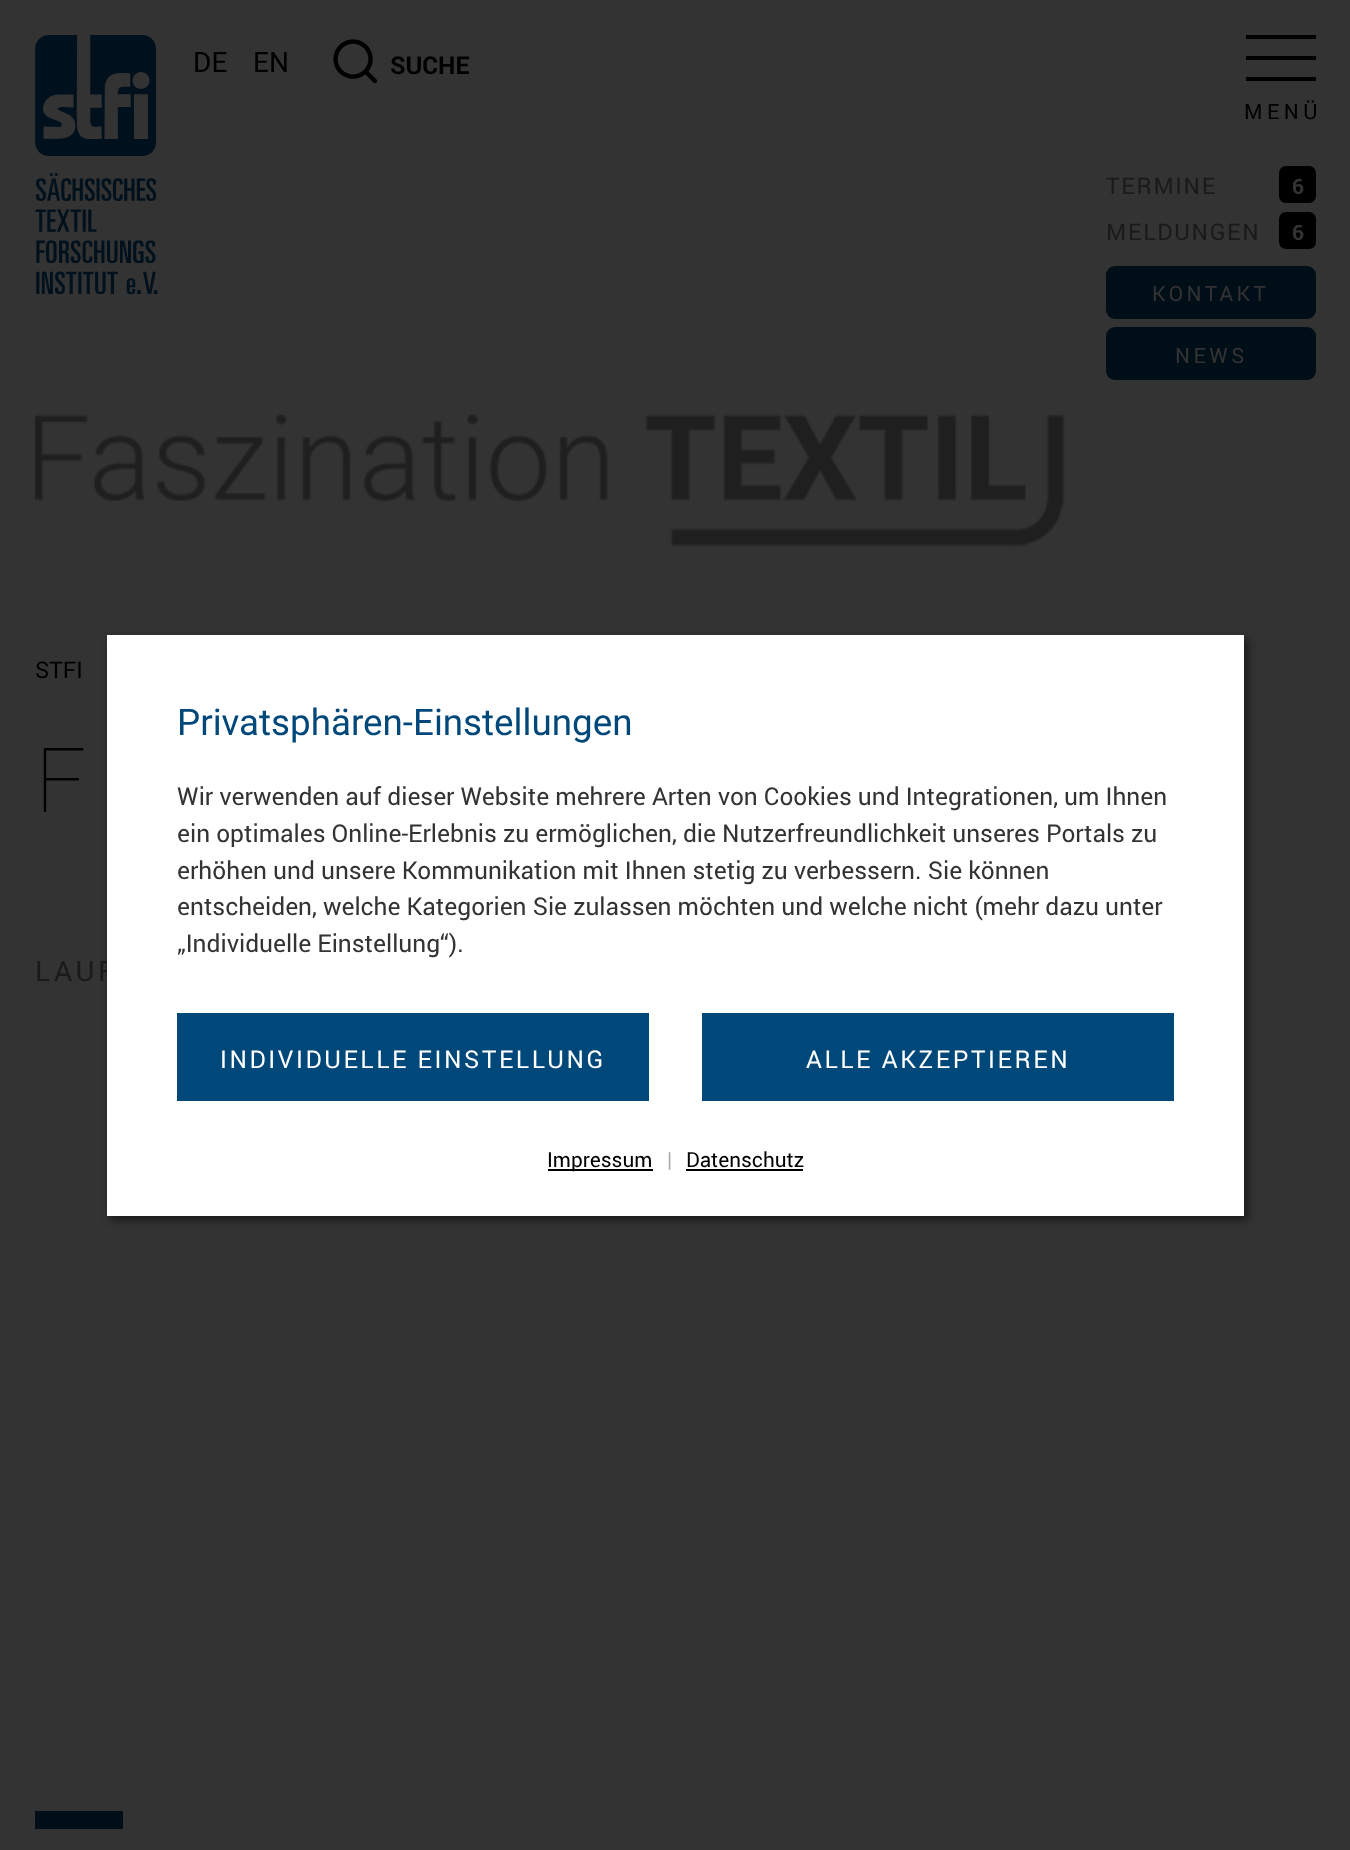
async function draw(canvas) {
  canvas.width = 1350
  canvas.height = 1850
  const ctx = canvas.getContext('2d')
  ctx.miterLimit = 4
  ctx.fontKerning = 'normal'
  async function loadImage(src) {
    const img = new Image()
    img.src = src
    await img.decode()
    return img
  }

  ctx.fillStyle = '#333'
  ctx.fillRect(0, 0, 1350, 1850)
  ctx.drawImage(await loadImage('image0.png'), 35, 35, 123, 259)
  ctx.font = '28px "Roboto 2"'
  ctx.fillStyle = '#000'
  ctx.fillText('DE', 193, 72)
  ctx.fillText('EN', 253, 72)
  ctx.drawImage(await loadImage('image1.png'), 333, 39, 45, 45)
  ctx.font = 'bold 24.5px Roboto'
  ctx.fillText('SUCHE', 390, 74)
  ctx.fillRect(1246, 35, 70, 4)
  ctx.fillRect(1246, 56, 70, 4)
  ctx.fillRect(1246, 77, 70, 4)
  ctx.letterSpacing = '4.5px'
  ctx.font = '21px Roboto'
  ctx.fillText('MENÜ', 1244, 119)
  ctx.letterSpacing = '1.75px'
  ctx.font = '23px Roboto'
  ctx.fillStyle = '#1a1a1a'
  ctx.fillText('TERMINE', 1106, 194)
  ctx.fillStyle = '#000'
  ctx.beginPath()
  ctx.roundRect(1279, 166, 37, 37, 7)
  ctx.fill()
  ctx.letterSpacing = '0px'
  ctx.font = 'bold 21px Roboto'
  ctx.fillStyle = '#333'
  ctx.fillText('6', 1292, 194)
  ctx.letterSpacing = '1.75px'
  ctx.font = '23px Roboto'
  ctx.fillStyle = '#1a1a1a'
  ctx.fillText('MELDUNGEN', 1106, 240)
  ctx.fillStyle = '#000'
  ctx.beginPath()
  ctx.roundRect(1279, 212, 37, 37, 7)
  ctx.fill()
  ctx.letterSpacing = '0px'
  ctx.font = 'bold 21px Roboto'
  ctx.fillStyle = '#333'
  ctx.fillText('6', 1292, 240)
  ctx.fillStyle = '#000e18'
  ctx.beginPath()
  ctx.roundRect(1106, 266, 210, 53, 9)
  ctx.fill()
  ctx.letterSpacing = '3.5px'
  ctx.font = '21px Roboto'
  ctx.fillStyle = '#333'
  ctx.fillText('KONTAKT', 1152, 301)
  ctx.fillStyle = '#000e18'
  ctx.beginPath()
  ctx.roundRect(1106, 327, 210, 53, 9)
  ctx.fill()
  ctx.fillStyle = '#333'
  ctx.fillText('NEWS', 1175, 363)
  ctx.drawImage(await loadImage('image2.png'), 35, 414, 1030, 133)
  ctx.letterSpacing = '0px'
  ctx.font = '23px Roboto'
  ctx.fillStyle = '#000'
  ctx.fillText('STFI', 35, 678)
  ctx.font = '100 90px Roboto'
  ctx.fillText('F', 35, 812)
  ctx.letterSpacing = '3.5px'
  ctx.font = '28px Roboto'
  ctx.fillStyle = '#1a1a1a'
  ctx.fillText('LAUF', 35, 981)
  ctx.fillStyle = '#000e18'
  ctx.fillRect(35, 1811, 88, 18)
  ctx.fillStyle = '#00000080'
  ctx.filter = 'blur(4.5px)'
  ctx.beginPath()
  ctx.rect(110, 639, 1138, 581)
  ctx.fill()
  ctx.filter = 'none'
  ctx.fillStyle = '#fff'
  ctx.fillRect(107, 635, 1137, 581)
  ctx.letterSpacing = '0px'
  ctx.font = '36.75px "Roboto 2"'
  ctx.fillStyle = '#00487a'
  ctx.fillText('Privatsphären-Einstellungen', 177, 735)
  ctx.font = '24.5px Roboto'
  ctx.fillStyle = '#333'
  ctx.fillText('Wir verwenden auf dieser Website mehrere Arten von Cookies und Integrationen, um Ihnen', 177, 805)
  ctx.fillText('ein optimales Online-Erlebnis zu ermöglichen, die Nutzerfreundlichkeit unseres Portals zu', 177, 842)
  ctx.fillText('erhöhen und unsere Kommunikation mit Ihnen stetig zu verbessern. Sie können', 177, 879)
  ctx.fillText('entscheiden, welche Kategorien Sie zulassen möchten und welche nicht (mehr dazu unter', 177, 915)
  ctx.fillText('„Individuelle Einstellung“).', 177, 952)
  ctx.fillStyle = '#00487a'
  ctx.fillRect(177, 1013, 472, 88)
  ctx.letterSpacing = '2.6px'
  ctx.fillStyle = '#fff'
  ctx.fillText('INDIVIDUELLE EINSTELLUNG', 220, 1068)
  ctx.fillStyle = '#00487a'
  ctx.fillRect(702, 1013, 472, 88)
  ctx.fillStyle = '#fff'
  ctx.fillText('ALLE AKZEPTIEREN', 806, 1068)
  ctx.fillStyle = '#000'
  ctx.fillRect(548, 1169, 105, 2)
  ctx.letterSpacing = '0px'
  ctx.font = '20.75px Roboto'
  ctx.fillText('Impressum', 547, 1167)
  ctx.fillStyle = '#aaa'
  ctx.fillText('|', 667, 1167)
  ctx.fillStyle = '#000'
  ctx.fillText('Datenschutz', 686, 1167)
  ctx.fillRect(686, 1169, 117, 2)
}

draw(document.querySelector('canvas'))
